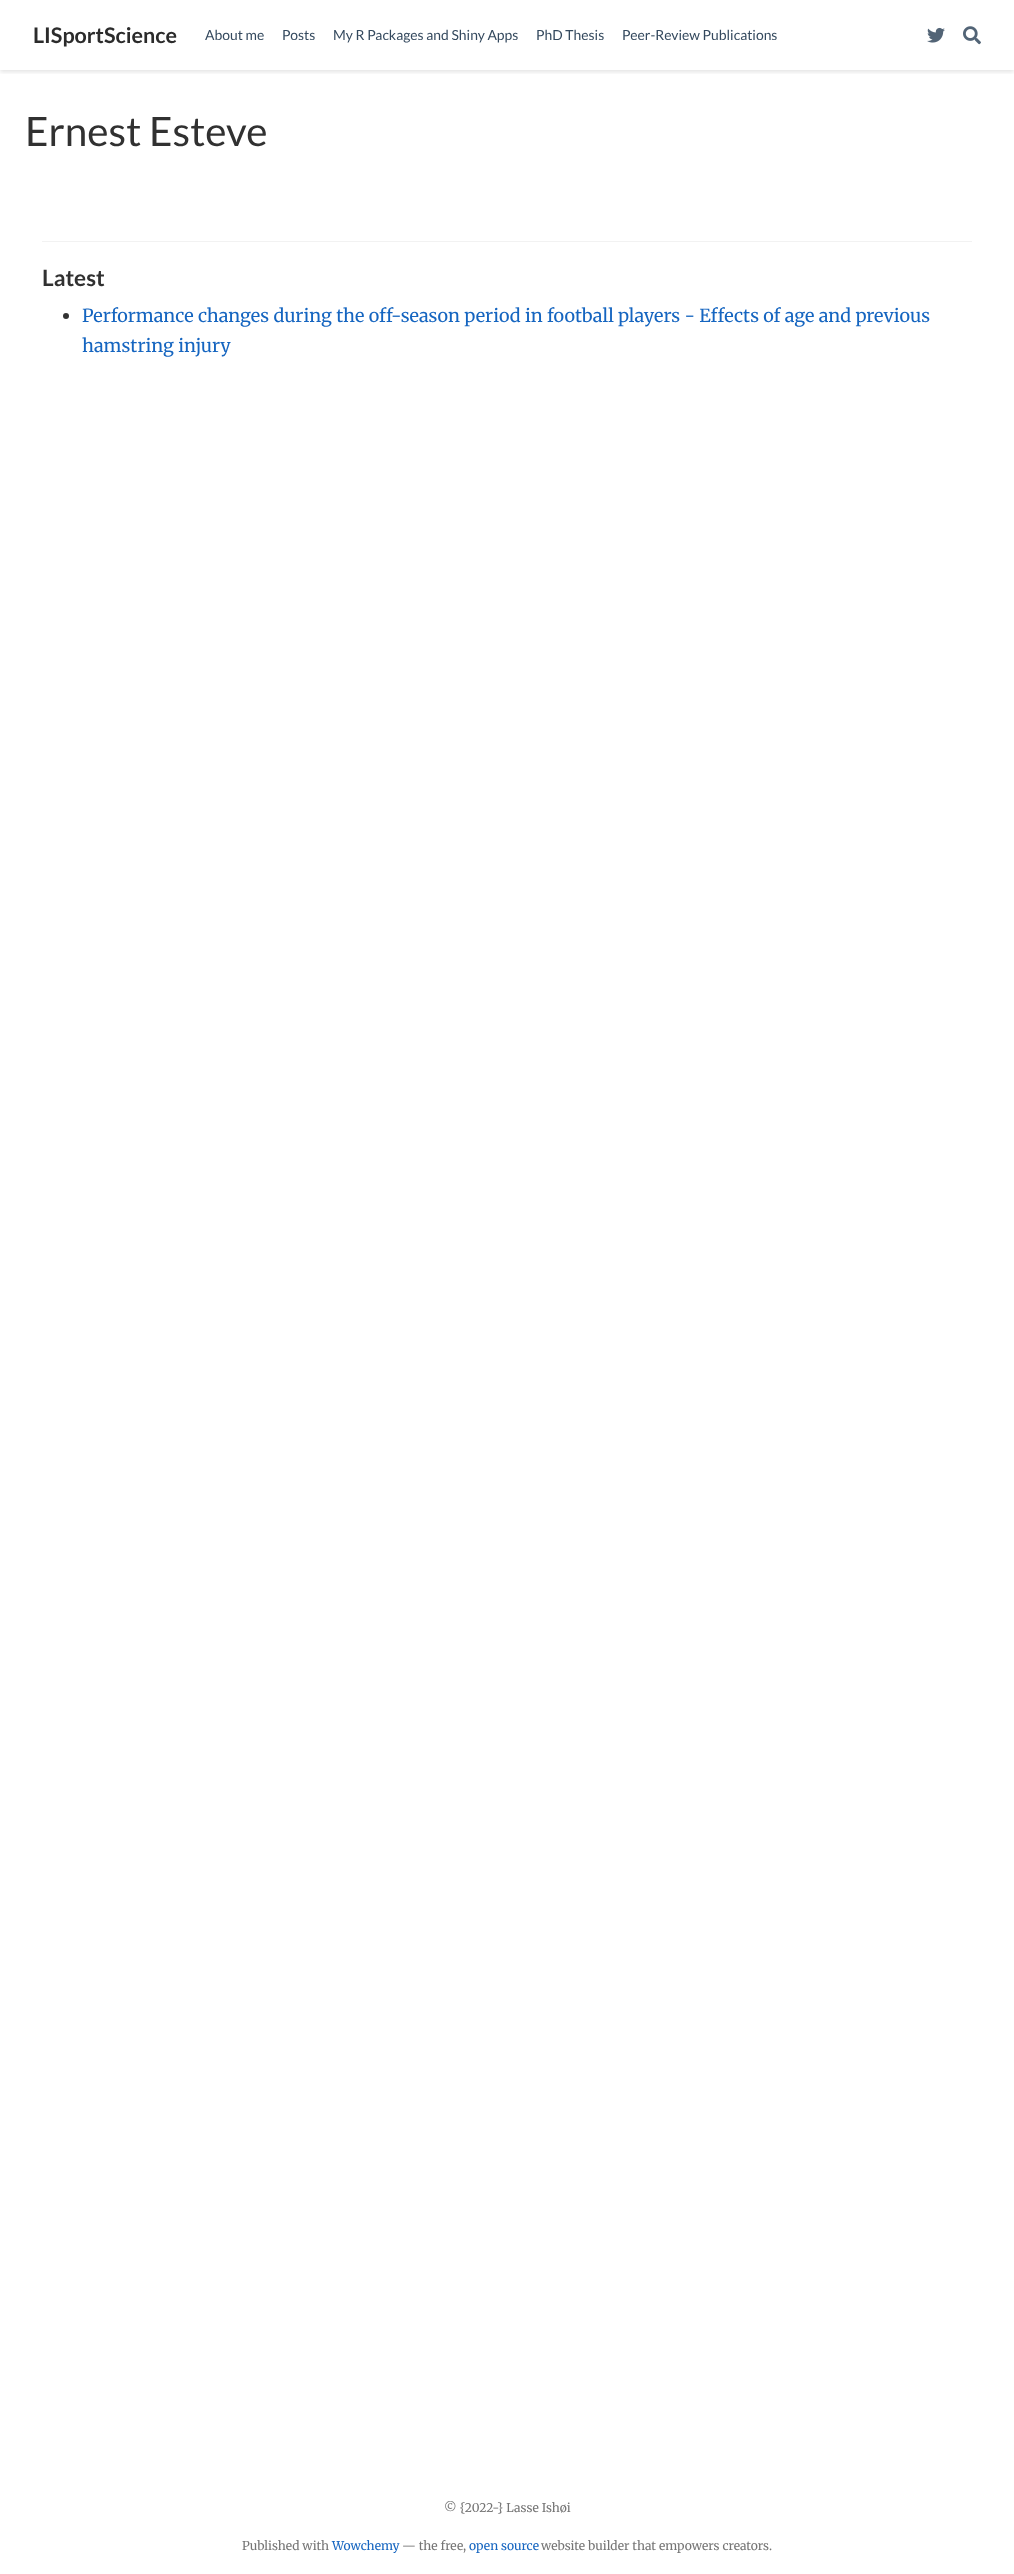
async function draw(canvas) {
  canvas.width = 1014
  canvas.height = 2574
  const ctx = canvas.getContext('2d')
  ctx.miterLimit = 4
  ctx.fontKerning = 'normal'
  async function loadImage(src) {
    const img = new Image()
    img.src = src
    await img.decode()
    return img
  }

  ctx.fillStyle = '#fff'
  ctx.fillRect(0, 0, 1014, 2574)
  ctx.save()
  ctx.beginPath()
  ctx.rect(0, 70, 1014, 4)
  ctx.clip()
  ctx.fillStyle = '#0000001c'
  ctx.filter = 'blur(2px)'
  ctx.beginPath()
  ctx.rect(0, 2, 1014, 70)
  ctx.fill()
  ctx.filter = 'none'
  ctx.restore()
  ctx.font = 'bold 21.5px Lato'
  ctx.fillStyle = '#2b2b2b'
  ctx.fillText('LISportScience', 33, 43)
  ctx.font = '13.9px Lato'
  ctx.fillStyle = '#34495e'
  ctx.fillText('About me', 205, 40)
  ctx.fillText('Posts', 282, 40)
  ctx.fillText('My R Packages and Shiny Apps', 333, 40)
  ctx.fillText('PhD Thesis', 536, 40)
  ctx.fillText('Peer-Review Publications', 622, 40)
  ctx.drawImage(await loadImage('image0.png'), 927, 27, 18, 16)
  ctx.drawImage(await loadImage('image1.png'), 963, 26, 18, 19)
  ctx.font = '40.5px Lato'
  ctx.fillStyle = '#313131'
  ctx.fillText('Ernest Esteve', 25, 146)
  ctx.fillStyle = '#f2f2f2'
  ctx.fillRect(42, 241, 930, 1)
  ctx.font = 'bold 22.5px Lato'
  ctx.fillStyle = '#313131'
  ctx.fillText('Latest', 42, 286)
  ctx.fillStyle = '#333'
  ctx.beginPath()
  ctx.arc(66, 316, 3, 0, 2 * Math.PI)
  ctx.fill()
  ctx.font = '300 18px Merriweather'
  ctx.fillStyle = '#1565c0'
  ctx.fillText('Performance changes during the off-season period in football players - Effects of age and previous', 82, 322)
  ctx.fillText('hamstring injury', 82, 352)
  ctx.font = '300 12.1px Merriweather'
  ctx.fillStyle = '#757575'
  ctx.fillText('© {2022-} Lasse Ishøi', 444, 2512)
  ctx.fillText('Published with', 242, 2550)
  ctx.fillStyle = '#1565c0'
  ctx.fillText('Wowchemy', 332, 2550)
  ctx.fillStyle = '#757575'
  ctx.fillText('— the free,', 402, 2550)
  ctx.fillStyle = '#1565c0'
  ctx.fillText('open source', 469, 2550)
  ctx.fillStyle = '#757575'
  ctx.fillText('website builder that empowers creators.', 541, 2550)
}

draw(document.querySelector('canvas'))
